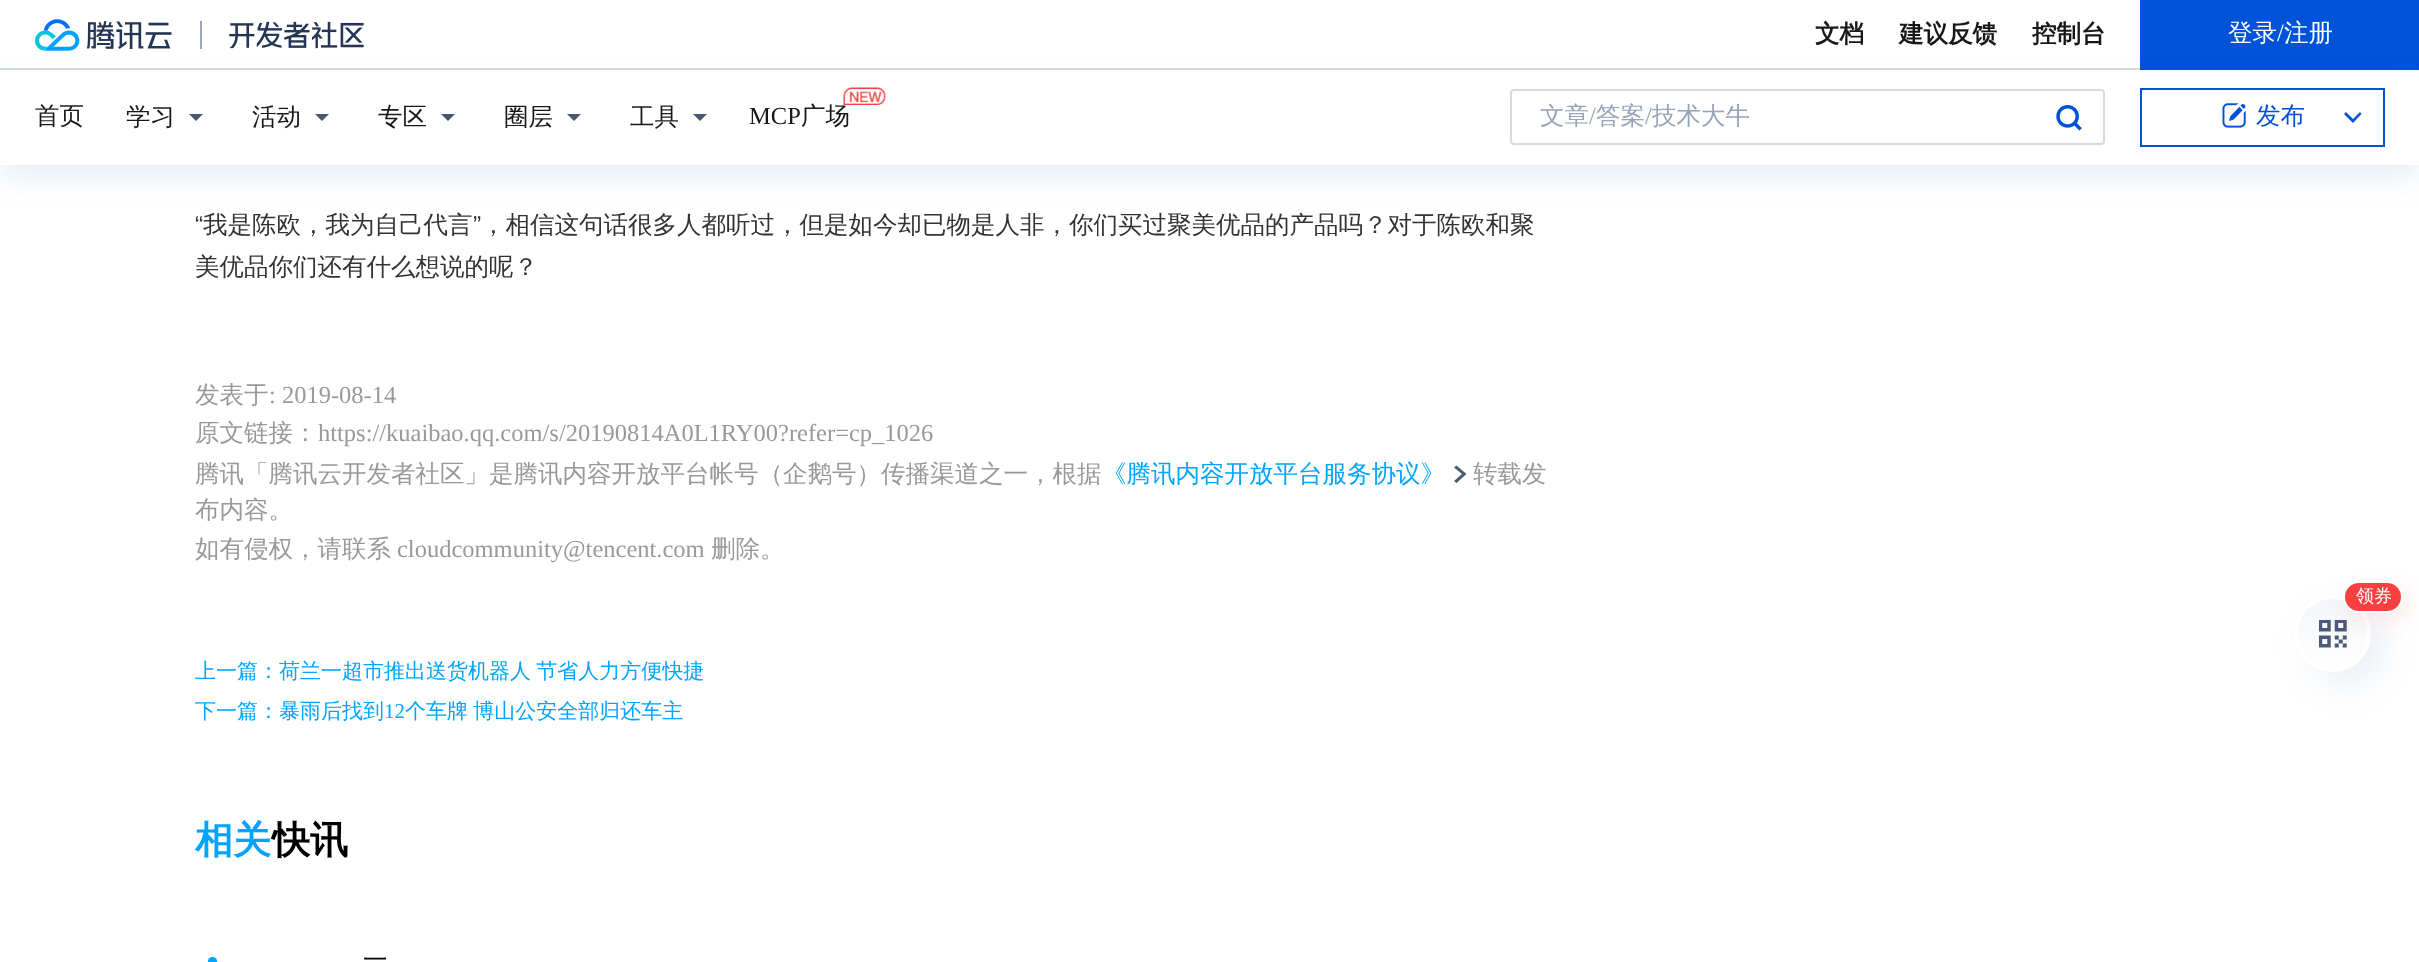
async function draw(canvas) {
  canvas.width = 2419
  canvas.height = 962
  const ctx = canvas.getContext('2d')
  ctx.miterLimit = 4
  ctx.fontKerning = 'normal'
  async function loadImage(src) {
    const img = new Image()
    img.src = src
    await img.decode()
    return img
  }
  let gradient

  ctx.fillStyle = '#fff'
  ctx.fillRect(0, 0, 2419, 962)
  ctx.fillStyle = '#d6dbe3'
  ctx.fillRect(0, 68, 2140, 2)
  ctx.drawImage(await loadImage('image0.png'), 35, 19, 137, 32)
  ctx.fillStyle = '#9ba6b7'
  ctx.fillRect(200, 21, 2, 28)
  ctx.drawImage(await loadImage('image1.png'), 229, 21, 135, 28)
  ctx.font = 'bold 24.5px WenQuanYi Zen Hei'
  ctx.fillStyle = '#16181a'
  ctx.fillText('文档', 1815, 42)
  ctx.fillText('建议反馈', 1899, 42)
  ctx.fillText('控制台', 2032, 42)
  ctx.fillStyle = '#0052d9'
  ctx.fillRect(2140, 0, 279, 70)
  ctx.font = '500 24.5px WenQuanYi Zen Hei'
  ctx.fillStyle = '#fff'
  ctx.fillText('登录', 2228, 41)
  ctx.font = '24.5px Liberation Serif'
  ctx.fillText('/', 2277, 41)
  ctx.font = '500 24.5px WenQuanYi Zen Hei'
  ctx.fillText('注册', 2284, 41)
  ctx.fillStyle = '#3763aa1a'
  ctx.filter = 'blur(14px)'
  ctx.beginPath()
  ctx.rect(0, 84, 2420, 95)
  ctx.fill()
  ctx.filter = 'none'
  ctx.fillStyle = '#fff'
  ctx.fillRect(0, 70, 2419, 95)
  ctx.fillStyle = '#16181a'
  ctx.fillText('首页', 35, 124)
  ctx.fillText('学习', 126, 125)
  ctx.fillStyle = '#495770'
  ctx.beginPath()
  ctx.moveTo(196, 121)
  ctx.lineTo(203, 114)
  ctx.lineTo(189, 114)
  ctx.closePath()
  ctx.fill('evenodd')
  ctx.fillStyle = '#16181a'
  ctx.fillText('活动', 252, 125)
  ctx.fillStyle = '#495770'
  ctx.beginPath()
  ctx.moveTo(322, 121)
  ctx.lineTo(329, 114)
  ctx.lineTo(315, 114)
  ctx.closePath()
  ctx.fill('evenodd')
  ctx.fillStyle = '#16181a'
  ctx.fillText('专区', 378, 125)
  ctx.fillStyle = '#495770'
  ctx.beginPath()
  ctx.moveTo(448, 121)
  ctx.lineTo(455, 114)
  ctx.lineTo(441, 114)
  ctx.closePath()
  ctx.fill('evenodd')
  ctx.fillStyle = '#16181a'
  ctx.fillText('圈层', 504, 125)
  ctx.fillStyle = '#495770'
  ctx.beginPath()
  ctx.moveTo(574, 121)
  ctx.lineTo(581, 114)
  ctx.lineTo(567, 114)
  ctx.closePath()
  ctx.fill('evenodd')
  ctx.fillStyle = '#16181a'
  ctx.fillText('工具', 630, 125)
  ctx.fillStyle = '#495770'
  ctx.beginPath()
  ctx.moveTo(700, 121)
  ctx.lineTo(707, 114)
  ctx.lineTo(693, 114)
  ctx.closePath()
  ctx.fill('evenodd')
  ctx.fillStyle = '#16181a'
  ctx.fillText('广场', 801, 124)
  ctx.drawImage(await loadImage('image2.png'), 843, 87, 43, 18)
  ctx.font = '24.5px Liberation Serif'
  ctx.fillText('MCP', 749, 124)
  ctx.beginPath()
  ctx.roundRect(1511, 90, 593, 54, 3)
  ctx.strokeStyle = '#d6dbe3'
  ctx.lineWidth = 2
  ctx.stroke()
  ctx.font = '500 24.5px WenQuanYi Zen Hei'
  ctx.fillStyle = '#97a3b7'
  ctx.fillText('文章', 1540, 124)
  ctx.font = '24.5px Liberation Serif'
  ctx.fillText('/', 1589, 124)
  ctx.font = '500 24.5px WenQuanYi Zen Hei'
  ctx.fillText('答案', 1596, 124)
  ctx.font = '24.5px Liberation Serif'
  ctx.fillText('/', 1645, 124)
  ctx.font = '500 24.5px WenQuanYi Zen Hei'
  ctx.fillText('技术大牛', 1652, 124)
  ctx.drawImage(await loadImage('image3.png'), 2056, 105, 26, 26)
  ctx.strokeStyle = '#0052d9'
  ctx.strokeRect(2141, 89, 243, 57)
  ctx.drawImage(await loadImage('image4.png'), 2222, 103, 24, 25)
  ctx.fillStyle = '#0052d9'
  ctx.fillText('发布', 2256, 124)
  ctx.beginPath()
  ctx.moveTo(2353, 123)
  ctx.lineTo(2344, 114)
  ctx.lineTo(2346, 112)
  ctx.lineTo(2353, 119)
  ctx.lineTo(2360, 112)
  ctx.lineTo(2361.5, 114)
  ctx.closePath()
  ctx.fill()
  ctx.font = '24.5px Liberation Sans'
  ctx.fillStyle = '#333'
  ctx.fillText('“', 195, 233)
  ctx.font = '500 24.5px WenQuanYi Zen Hei'
  ctx.fillText('我是陈欧，我为自己代言', 203, 233)
  ctx.font = '24.5px Liberation Sans'
  ctx.fillText('”', 473, 233)
  ctx.font = '500 24.5px WenQuanYi Zen Hei'
  ctx.fillText('，相信这句话很多人都听过，但是如今却已物是人非，你们买过聚美优品的产品吗？对于陈欧和聚', 481, 233)
  ctx.fillText('美优品你们还有什么想说的呢？', 195, 275)
  ctx.fillStyle = '#999'
  ctx.fillText('发表于', 195, 403)
  ctx.font = '24.5px Liberation Serif'
  ctx.fillText(': 2019-08-14', 269, 403)
  ctx.font = '500 24.5px WenQuanYi Zen Hei'
  ctx.fillText('原文链接：', 195, 441)
  ctx.font = '24.5px Liberation Serif'
  ctx.fillText('https://kuaibao.qq.com/s/20190814A0L1RY00?refer=cp_1026', 318, 441)
  ctx.font = '500 24.5px WenQuanYi Zen Hei'
  ctx.fillText('腾讯「腾讯云开发者社区」是腾讯内容开放平台帐号（企鹅号）传播渠道之一，根据', 195, 482)
  ctx.fillStyle = '#00a4ff'
  ctx.fillText('《腾讯内容开放平台服务协议》', 1102, 482)
  ctx.fillStyle = '#4b5b76'
  ctx.beginPath()
  ctx.moveTo(1466.5, 474)
  ctx.lineTo(1456.5, 483)
  ctx.lineTo(1454, 481)
  ctx.lineTo(1462, 474)
  ctx.lineTo(1454, 467.5)
  ctx.lineTo(1456.5, 465.5)
  ctx.closePath()
  ctx.fill()
  ctx.fillStyle = '#999'
  ctx.fillText('转载发', 1473, 482)
  ctx.fillText('布内容。', 195, 518)
  ctx.fillText('如有侵权，请联系', 195, 557)
  ctx.font = '24.5px Liberation Serif'
  ctx.fillText('cloudcommunity@tencent.com', 397, 557)
  ctx.font = '500 24.5px WenQuanYi Zen Hei'
  ctx.fillText('删除。', 711, 557)
  ctx.wordSpacing = '-1px'
  ctx.font = '500 21px WenQuanYi Zen Hei'
  ctx.fillStyle = '#00a4ff'
  ctx.fillText('上一篇：荷兰一超市推出送货机器人 节省人力方便快捷', 195, 678)
  ctx.wordSpacing = '0px'
  ctx.fillText('下一篇：暴雨后找到', 195, 718)
  ctx.font = '21px Liberation Serif'
  ctx.fillText('12', 384, 718)
  ctx.wordSpacing = '-1px'
  ctx.font = '500 21px WenQuanYi Zen Hei'
  ctx.fillText('个车牌 博山公安全部归还车主', 405, 718)
  ctx.wordSpacing = '0px'
  ctx.font = 'bold 38px WenQuanYi Zen Hei'
  ctx.fillText('相关', 195, 853)
  ctx.fillStyle = '#000'
  ctx.fillText('快讯', 272, 853)
  ctx.fillStyle = '#00a4ff'
  ctx.beginPath()
  ctx.arc(212.5, 961.5, 4.5, 0, 2 * Math.PI)
  ctx.fill()
  ctx.font = '500 24.5px WenQuanYi Zen Hei'
  ctx.fillStyle = '#000'
  ctx.fillText('一', 363, 968)
  ctx.fillStyle = '#3763aa1a'
  ctx.filter = 'blur(17.5px)'
  ctx.beginPath()
  ctx.roundRect(2308, 609, 77, 77, 38.5)
  ctx.fill()
  ctx.filter = 'none'
  ctx.save()
  ctx.beginPath()
  ctx.roundRect(2294, 595, 77, 77, 38.5)
  ctx.clip()
  gradient = ctx.createLinearGradient(2333, 669, 2333, 599)
  gradient.addColorStop(0, '#fff')
  gradient.addColorStop(1, '#f3f5f8')
  ctx.fillStyle = gradient
  ctx.fillRect(2294, 599, 77, 70)
  ctx.restore()
  ctx.beginPath()
  ctx.arc(2332.5, 633.5, 36.5, 0, 2 * Math.PI)
  ctx.strokeStyle = '#fff'
  ctx.lineWidth = 4
  ctx.stroke()
  ctx.drawImage(await loadImage('image5.png'), 2319, 620, 28, 28)
  ctx.fillStyle = '#d635351a'
  ctx.filter = 'blur(10.5px)'
  ctx.beginPath()
  ctx.roundRect(2350, 588, 60, 32, 16)
  ctx.fill()
  ctx.filter = 'none'
  ctx.fillStyle = '#f64041'
  ctx.beginPath()
  ctx.roundRect(2344, 582, 58, 30, 15)
  ctx.fill()
  ctx.lineWidth = 2
  ctx.stroke()
  ctx.font = '500 18px WenQuanYi Zen Hei'
  ctx.fillStyle = '#fff'
  ctx.fillText('领券', 2356, 602)
}

draw(document.querySelector('canvas'))
